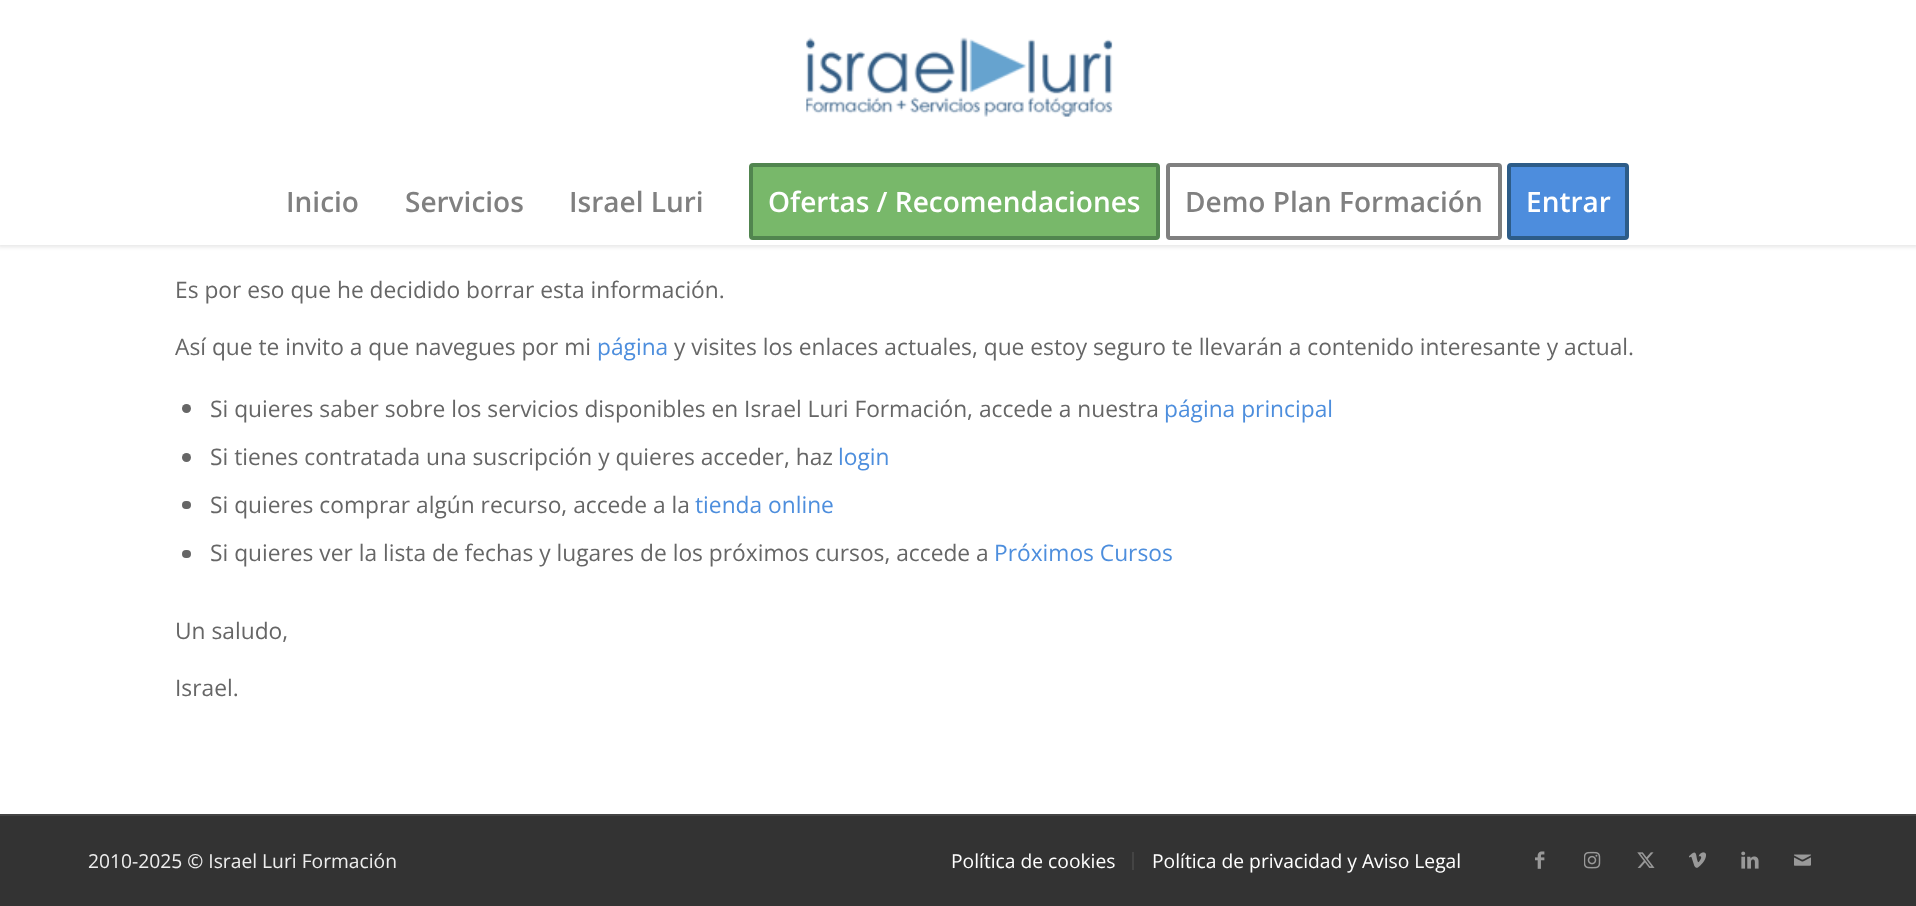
async function draw(canvas) {
  canvas.width = 1916
  canvas.height = 906
  const ctx = canvas.getContext('2d')
  ctx.miterLimit = 4
  ctx.fontKerning = 'normal'
  async function loadImage(src) {
    const img = new Image()
    img.src = src
    await img.decode()
    return img
  }

  ctx.fillStyle = '#fff'
  ctx.fillRect(0, 0, 1916, 906)
  ctx.fillStyle = '#0000001a'
  ctx.filter = 'blur(2px)'
  ctx.beginPath()
  ctx.rect(-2, -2, 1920, 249)
  ctx.fill()
  ctx.filter = 'none'
  ctx.fillStyle = '#fff'
  ctx.fillRect(0, 0, 1916, 245)
  ctx.drawImage(await loadImage('image0.png'), 806, 37, 307, 80)
  ctx.font = '600 28px Open Sans'
  ctx.fillStyle = '#808080'
  ctx.fillText('Inicio', 286, 212)
  ctx.fillText('Servicios', 405, 212)
  ctx.fillText('Israel Luri', 569, 212)
  ctx.fillStyle = '#78b86a'
  ctx.beginPath()
  ctx.roundRect(751, 165, 407, 73, 2)
  ctx.fill()
  ctx.strokeStyle = '#51854f'
  ctx.lineWidth = 4
  ctx.stroke()
  ctx.fillStyle = '#fff'
  ctx.fillText('Ofertas / Recomendaciones', 768, 212)
  ctx.beginPath()
  ctx.roundRect(1168, 165, 332, 73, 2)
  ctx.strokeStyle = '#808080'
  ctx.stroke()
  ctx.fillStyle = '#808080'
  ctx.fillText('Demo Plan Formación', 1185, 212)
  ctx.fillStyle = '#4d8ddd'
  ctx.beginPath()
  ctx.roundRect(1509, 165, 118, 73, 2)
  ctx.fill()
  ctx.strokeStyle = '#2d5c88'
  ctx.stroke()
  ctx.fillStyle = '#fff'
  ctx.fillText('Entrar', 1526, 212)
  ctx.font = '22.75px Open Sans'
  ctx.fillStyle = '#666'
  ctx.fillText('Es por eso que he decidido borrar esta información.', 175, 298)
  ctx.fillText('Así que te invito a que navegues por mi', 175, 355)
  ctx.fillStyle = '#4d8edd'
  ctx.fillText('página', 597, 355)
  ctx.fillStyle = '#666'
  ctx.fillText('y visites los enlaces actuales, que estoy seguro te llevarán a contenido interesante y actual.', 674, 355)
  ctx.beginPath()
  ctx.arc(186.5, 408.5, 4.5, 0, 2 * Math.PI)
  ctx.fill()
  ctx.fillText('Si quieres saber sobre los servicios disponibles en Israel Luri Formación, accede a nuestra', 210, 417)
  ctx.fillStyle = '#4d8edd'
  ctx.fillText('página principal', 1164, 417)
  ctx.fillStyle = '#666'
  ctx.beginPath()
  ctx.arc(186.5, 457.5, 4.5, 0, 2 * Math.PI)
  ctx.fill()
  ctx.fillText('Si tienes contratada una suscripción y quieres acceder, haz', 210, 465)
  ctx.fillStyle = '#4d8edd'
  ctx.fillText('login', 838, 465)
  ctx.fillStyle = '#666'
  ctx.beginPath()
  ctx.roundRect(182, 501, 9, 8, 4)
  ctx.fill()
  ctx.fillText('Si quieres comprar algún recurso, accede a la', 210, 513)
  ctx.fillStyle = '#4d8edd'
  ctx.fillText('tienda online', 695, 513)
  ctx.fillStyle = '#666'
  ctx.beginPath()
  ctx.roundRect(182, 550, 9, 8, 4)
  ctx.fill()
  ctx.fillText('Si quieres ver la lista de fechas y lugares de los próximos cursos, accede a', 210, 561)
  ctx.fillStyle = '#4d8edd'
  ctx.fillText('Próximos Cursos', 994, 561)
  ctx.fillStyle = '#666'
  ctx.fillText('Un saludo,', 175, 639)
  ctx.fillText('Israel.', 175, 696)
  ctx.fillStyle = '#333'
  ctx.fillRect(0, 816, 1916, 90)
  ctx.fillStyle = '#444'
  ctx.fillRect(0, 814, 1916, 2)
  ctx.font = '19.25px Open Sans'
  ctx.fillStyle = '#eee'
  ctx.fillText('2010-2025 © Israel Luri Formación', 88, 868)
  ctx.fillStyle = '#fff'
  ctx.fillText('Política de cookies', 951, 868)
  ctx.fillStyle = '#444'
  ctx.fillRect(1132, 852, 2, 18)
  ctx.fillStyle = '#fff'
  ctx.fillText('Política de privacidad y Aviso Legal', 1152, 868)
  ctx.drawImage(await loadImage('image1.png'), 1535, 851, 10, 18)
  ctx.drawImage(await loadImage('image2.png'), 1584, 851, 17, 18)
  ctx.drawImage(await loadImage('image3.png'), 1637, 852, 18, 16)
  ctx.drawImage(await loadImage('image4.png'), 1689, 852, 17, 16)
  ctx.drawImage(await loadImage('image5.png'), 1741, 851, 18, 18)
  ctx.drawImage(await loadImage('image6.png'), 1794, 854, 17, 12)
}

draw(document.querySelector('canvas'))
